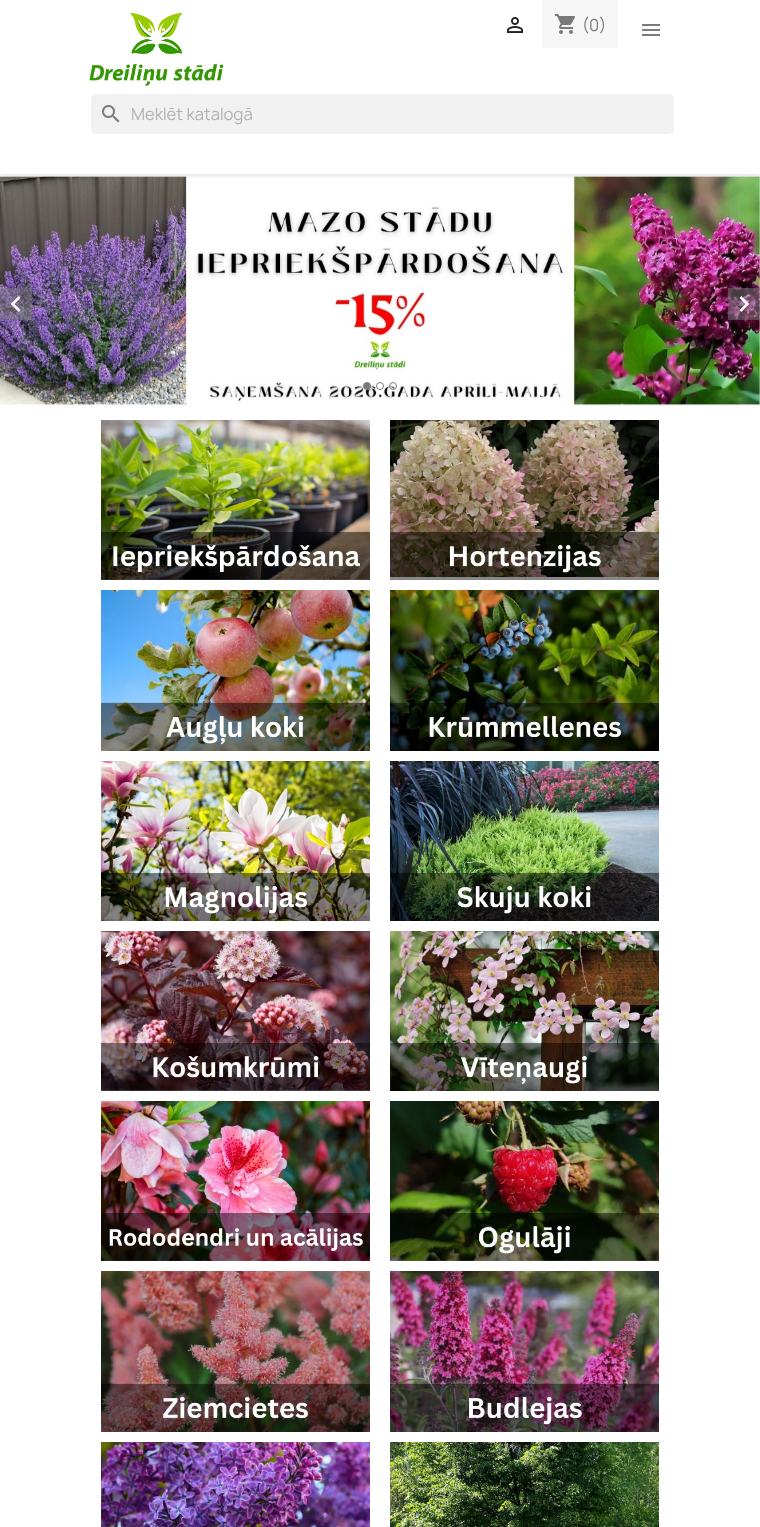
async function draw(canvas) {
  canvas.width = 760
  canvas.height = 1527
  const ctx = canvas.getContext('2d')
  ctx.miterLimit = 4
  ctx.fontKerning = 'normal'
  async function loadImage(src) {
    const img = new Image()
    img.src = src
    await img.decode()
    return img
  }

  ctx.fillStyle = '#fff'
  ctx.fillRect(0, 0, 760, 1527)
  ctx.drawImage(await loadImage('image5.png'), 0, 174, 760, 233)
  ctx.save()
  ctx.beginPath()
  ctx.rect(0, 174, 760, 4)
  ctx.clip()
  ctx.fillStyle = '#0000001c'
  ctx.filter = 'blur(2.5px)'
  ctx.beginPath()
  ctx.rect(0, 2, 760, 174)
  ctx.fill()
  ctx.filter = 'none'
  ctx.restore()
  ctx.drawImage(await loadImage('image0.png'), 89, 12, 135, 75)
  ctx.drawImage(await loadImage('image1.png'), 507, 17, 16, 16)
  ctx.fillStyle = '#f6f6f6'
  ctx.fillRect(542, 0, 76, 48)
  ctx.drawImage(await loadImage('image2.png'), 555, 14, 20, 20)
  ctx.font = '16px Manrope'
  ctx.fillStyle = '#7a7a7a'
  ctx.fillText('(0)', 582, 31)
  ctx.drawImage(await loadImage('image3.png'), 642, 24, 18, 12)
  ctx.fillStyle = '#f1f1f1'
  ctx.beginPath()
  ctx.roundRect(91, 94, 583, 40, 5)
  ctx.fill()
  ctx.drawImage(await loadImage('image4.png'), 102, 105, 18, 18)
  ctx.fillStyle = '#b1b1b1'
  ctx.fillText('Meklēt katalogā', 131, 120)
  ctx.fillStyle = '#7a7a7a80'
  ctx.fillRect(0, 288, 32, 32)
  ctx.drawImage(await loadImage('image6.png'), 10, 296, 11, 16)
  ctx.fillRect(728, 288, 32, 32)
  ctx.drawImage(await loadImage('image7.png'), 739, 296, 11, 16)
  ctx.fillStyle = '#7a7a7a'
  ctx.beginPath()
  ctx.arc(367, 386, 3.5, 0, 2 * Math.PI)
  ctx.fill()
  ctx.strokeStyle = '#7a7a7a'
  ctx.stroke()
  ctx.beginPath()
  ctx.arc(380, 386, 3.5, 0, 2 * Math.PI)
  ctx.stroke()
  ctx.beginPath()
  ctx.arc(393, 386, 3.5, 0, 2 * Math.PI)
  ctx.stroke()
  ctx.drawImage(await loadImage('image8.png'), 101, 420, 269, 160)
  ctx.drawImage(await loadImage('image9.png'), 390, 420, 269, 160)
  ctx.drawImage(await loadImage('image10.png'), 101, 590, 269, 161)
  ctx.drawImage(await loadImage('image11.png'), 390, 590, 269, 161)
  ctx.drawImage(await loadImage('image12.png'), 101, 761, 269, 160)
  ctx.drawImage(await loadImage('image13.png'), 390, 761, 269, 160)
  ctx.drawImage(await loadImage('image14.png'), 101, 931, 269, 160)
  ctx.drawImage(await loadImage('image15.png'), 390, 931, 269, 160)
  ctx.drawImage(await loadImage('image16.png'), 101, 1101, 269, 160)
  ctx.drawImage(await loadImage('image17.png'), 390, 1101, 269, 160)
  ctx.drawImage(await loadImage('image18.png'), 101, 1271, 269, 161)
  ctx.drawImage(await loadImage('image19.png'), 390, 1271, 269, 161)
  ctx.drawImage(await loadImage('image20.png'), 101, 1442, 269, 85)
  ctx.drawImage(await loadImage('image21.png'), 390, 1442, 269, 85)
}

draw(document.querySelector('canvas'))
